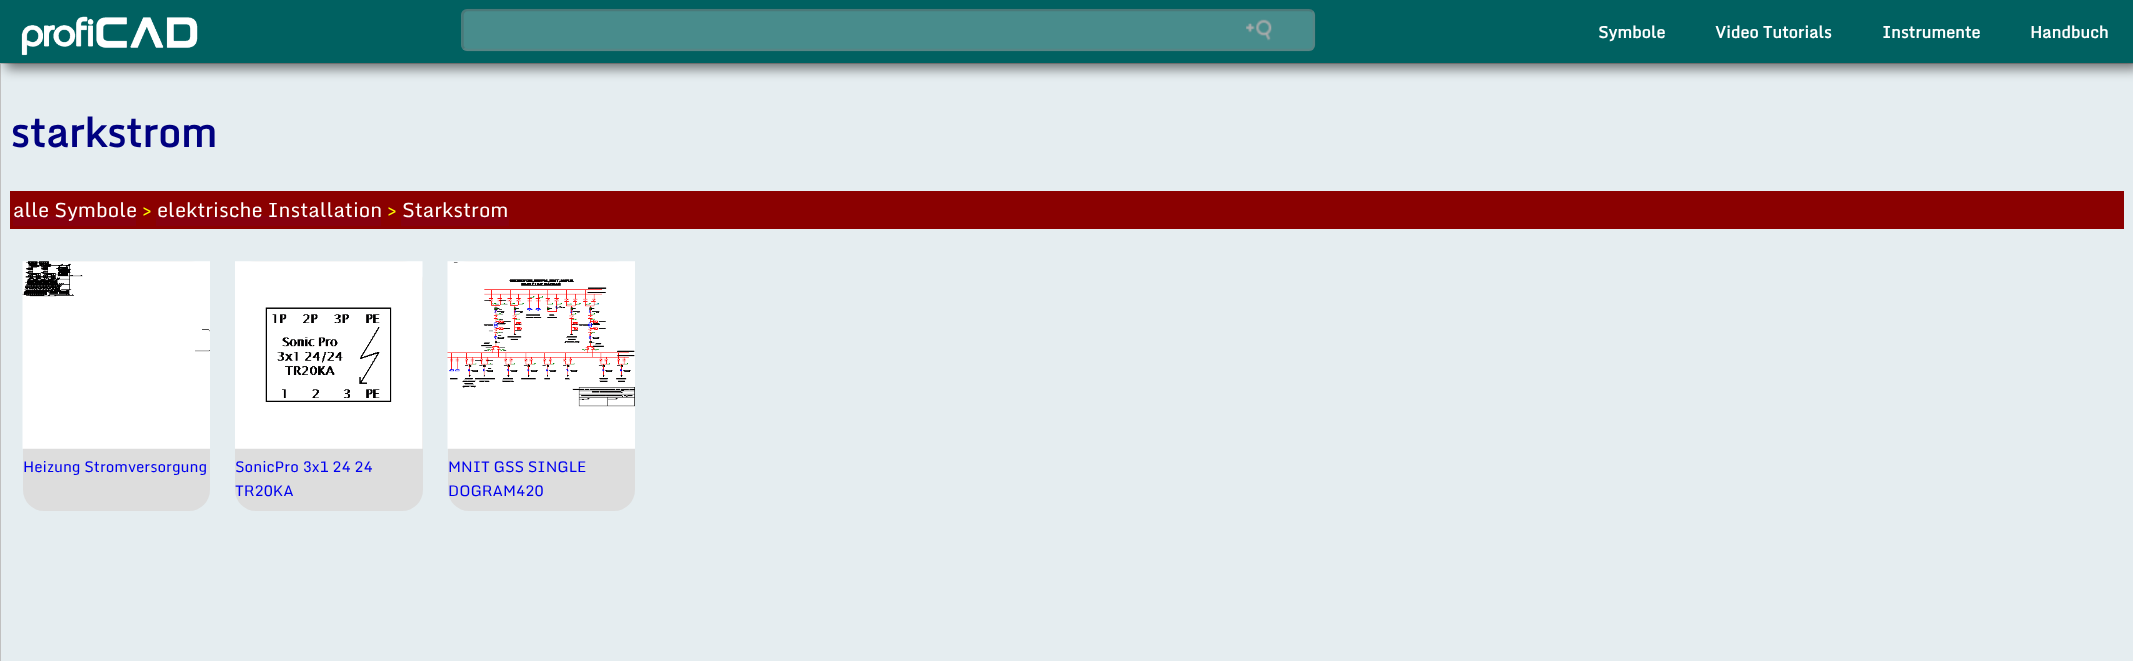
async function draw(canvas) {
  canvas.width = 2133
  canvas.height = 661
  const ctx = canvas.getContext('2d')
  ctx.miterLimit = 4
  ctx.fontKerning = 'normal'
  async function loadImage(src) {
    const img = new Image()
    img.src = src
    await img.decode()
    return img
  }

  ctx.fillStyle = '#fff'
  ctx.fillRect(0, 0, 2133, 661)
  ctx.strokeStyle = '#c0c0c0'
  ctx.strokeRect(0.5, 63.5, 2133, 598)
  ctx.fillStyle = '#e5edf0'
  ctx.fillRect(1, 64, 2132, 597)
  ctx.fillStyle = '#00000080'
  ctx.filter = 'blur(6px)'
  ctx.beginPath()
  ctx.rect(6, 6, 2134, 63)
  ctx.fill()
  ctx.filter = 'none'
  ctx.fillStyle = '#006161'
  ctx.fillRect(0, 0, 2133, 63)
  ctx.drawImage(await loadImage('image0.png'), 21, 16, 177, 40)
  ctx.fillStyle = '#488c8c'
  ctx.beginPath()
  ctx.roundRect(461, 9, 854, 42, 6)
  ctx.fill()
  ctx.drawImage(await loadImage('image1.png'), 1246, 19, 26, 22)
  ctx.beginPath()
  ctx.moveTo(1312.5, 11.5)
  ctx.bezierCurveTo(1313, 12.5, 1314, 13.5, 1314, 15)
  ctx.lineTo(1314, 45)
  ctx.bezierCurveTo(1314, 46.5, 1313, 47.5, 1312.5, 48.5)
  ctx.bezierCurveTo(1311.5, 49.5, 1310, 50, 1309, 50)
  ctx.lineTo(467.5, 50)
  ctx.bezierCurveTo(466, 50, 465, 49.5, 464, 48.5)
  ctx.strokeStyle = '#7676764d'
  ctx.lineWidth = 2.5
  ctx.stroke()
  ctx.beginPath()
  ctx.moveTo(464, 48.5)
  ctx.bezierCurveTo(463, 47.5, 462.5, 46.5, 462.5, 45)
  ctx.lineTo(462.5, 15)
  ctx.bezierCurveTo(462.5, 13.5, 463, 12.5, 464, 11.5)
  ctx.bezierCurveTo(465, 10.5, 466, 10, 467.5, 10)
  ctx.lineTo(1309, 10)
  ctx.bezierCurveTo(1310, 10, 1311.5, 10.5, 1312.5, 11.5)
  ctx.strokeStyle = '#4f4f4f4d'
  ctx.stroke()
  ctx.font = 'bold 16.25px Monda'
  ctx.fillStyle = '#fff'
  ctx.fillText('Symbole', 1598, 38)
  ctx.fillText('Video Tutorials', 1715, 38)
  ctx.fillText('Instrumente', 1882, 38)
  ctx.fillText('Handbuch', 2030, 38)
  ctx.font = 'bold 40px Monda'
  ctx.fillStyle = '#000080'
  ctx.fillText('starkstrom', 10, 147)
  ctx.fillStyle = '#8b0000'
  ctx.fillRect(10, 191, 2114, 38)
  ctx.fillStyle = '#87000f'
  ctx.fillRect(13, 216, 123, 10)
  ctx.font = '20px Monda'
  ctx.fillStyle = '#fff'
  ctx.fillText('alle Symbole', 13, 217)
  ctx.fillStyle = '#ff0'
  ctx.fillText('>', 142, 217)
  ctx.fillStyle = '#87000f'
  ctx.fillRect(156, 216, 225, 10)
  ctx.fillStyle = '#fff'
  ctx.fillText('elektrische Installation', 157, 217)
  ctx.fillStyle = '#ff0'
  ctx.fillText('>', 387, 217)
  ctx.fillStyle = '#87000f'
  ctx.fillRect(401, 216, 108, 10)
  ctx.fillStyle = '#fff'
  ctx.fillText('Starkstrom', 402, 217)
  ctx.fillStyle = '#ddd'
  ctx.beginPath()
  ctx.roundRect(23, 261, 187, 250, 21)
  ctx.fill()
  ctx.drawImage(await loadImage('image2.png'), 22, 261, 188, 188)
  ctx.font = '15px Monda'
  ctx.fillStyle = '#00e'
  ctx.fillText('Heizung Stromversorgung', 23, 472)
  ctx.fillStyle = '#ddd'
  ctx.beginPath()
  ctx.roundRect(235, 261, 188, 250, 21)
  ctx.fill()
  ctx.drawImage(await loadImage('image3.png'), 235, 261, 188, 188)
  ctx.fillStyle = '#00e'
  ctx.fillText('SonicPro 3x1 24 24', 235, 472)
  ctx.fillText('TR20KA', 235, 496)
  ctx.fillStyle = '#ddd'
  ctx.beginPath()
  ctx.roundRect(448, 261, 187, 250, 21)
  ctx.fill()
  ctx.drawImage(await loadImage('image4.png'), 447, 261, 188, 188)
  ctx.fillStyle = '#00e'
  ctx.fillText('MNIT GSS SINGLE', 448, 472)
  ctx.fillText('DOGRAM420', 448, 496)
}

draw(document.querySelector('canvas'))
